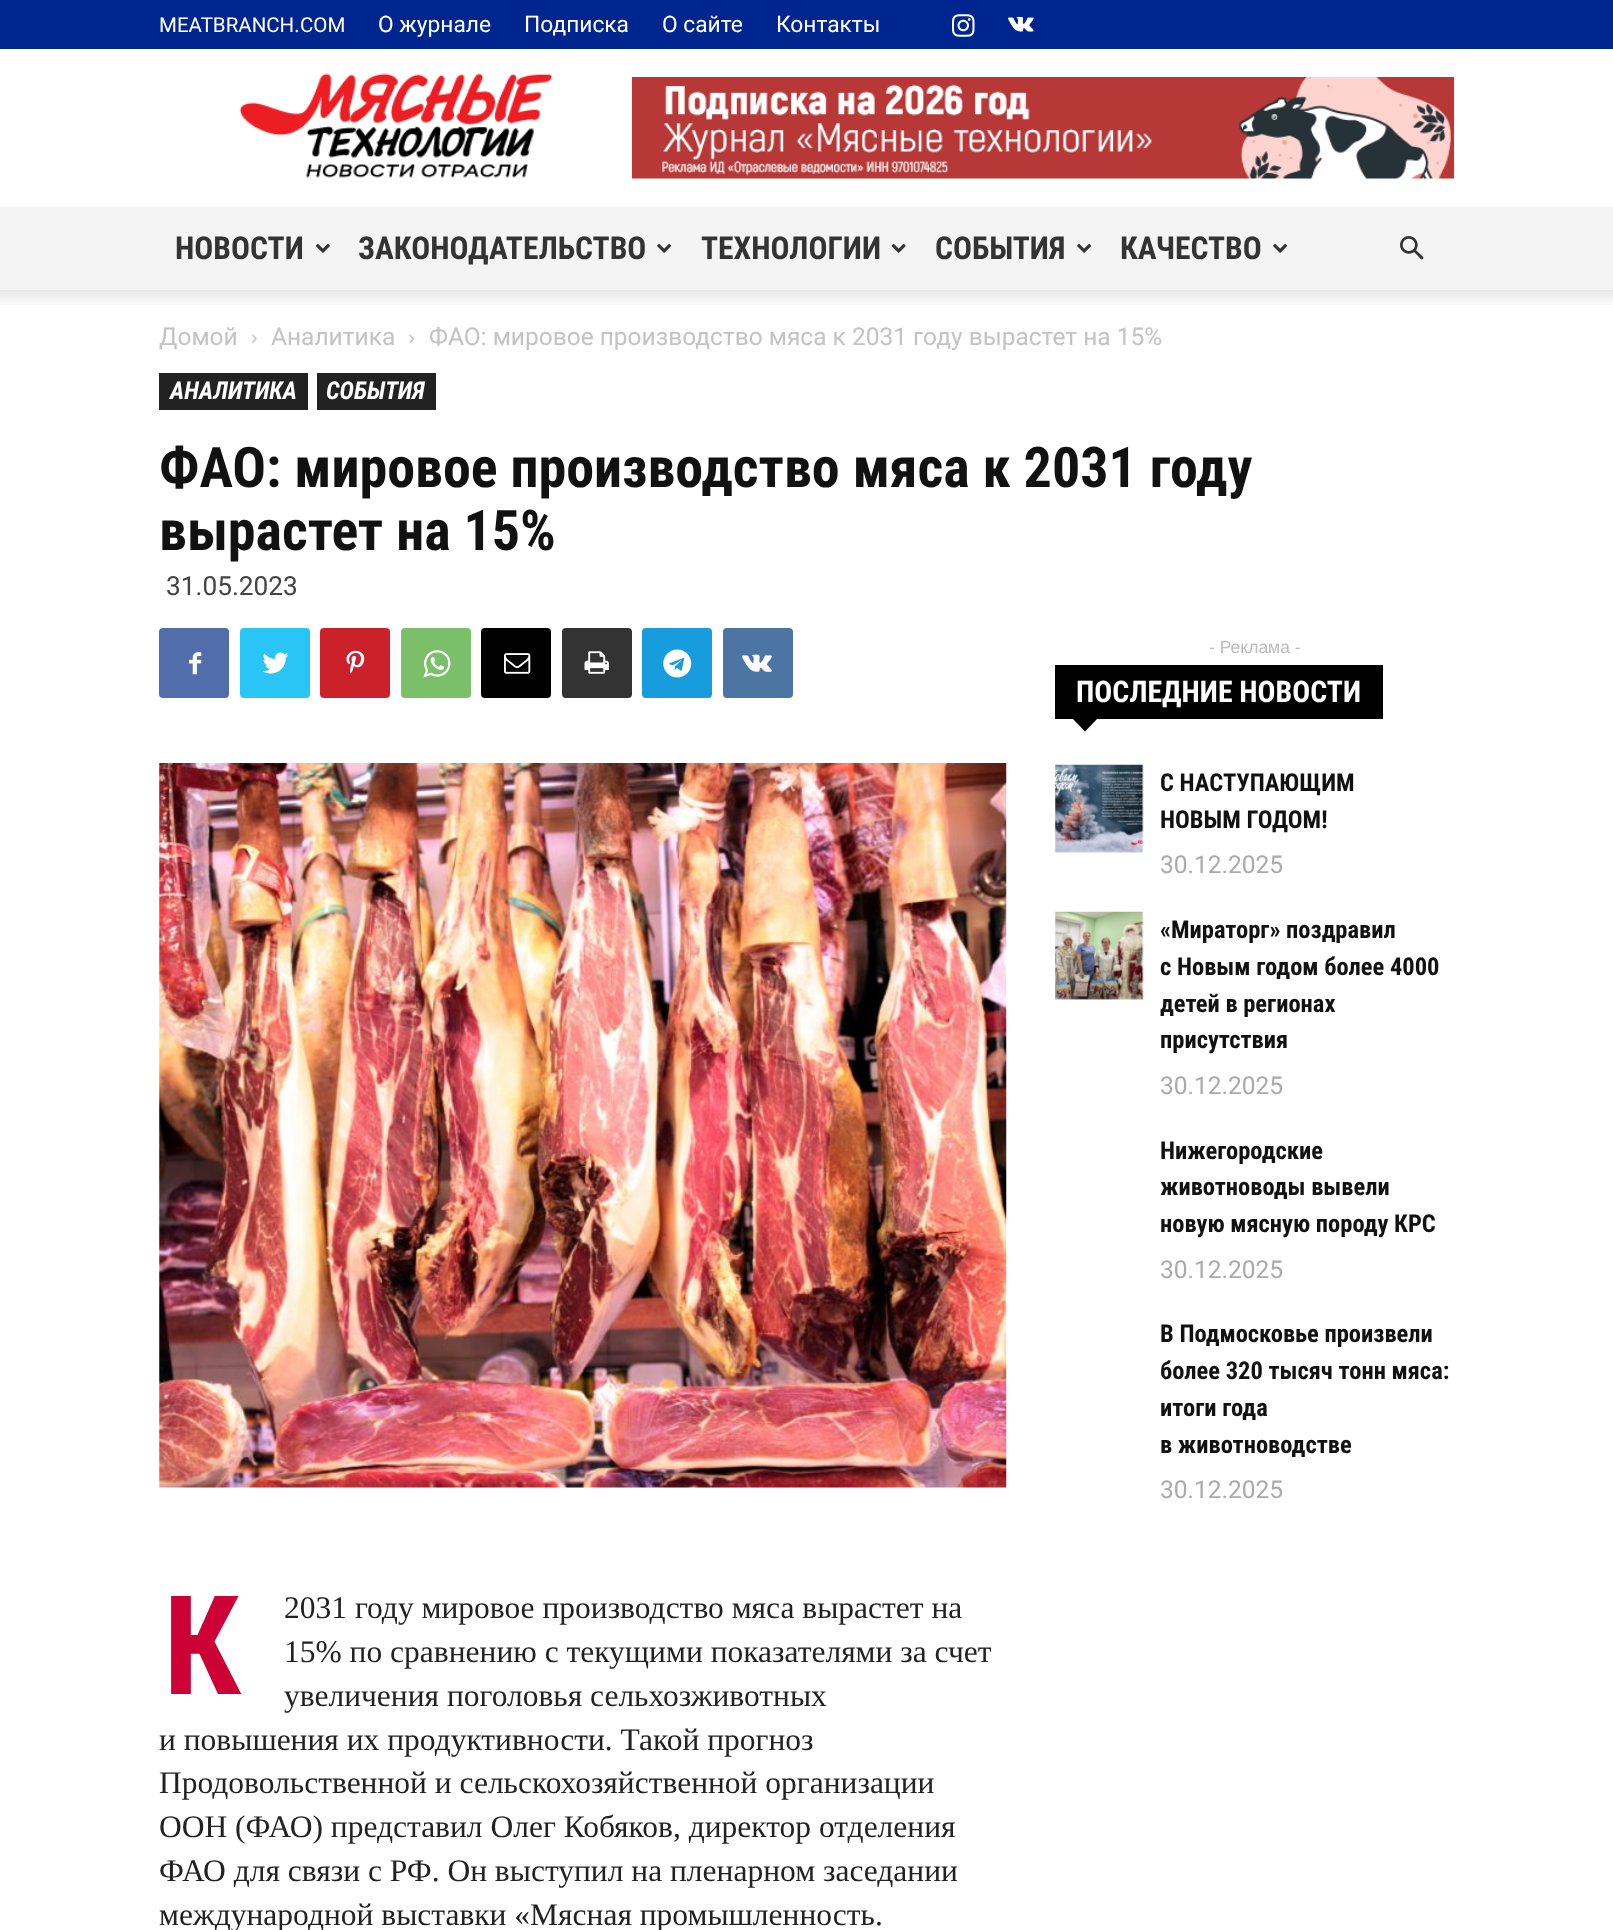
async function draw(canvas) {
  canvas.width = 1613
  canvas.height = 1930
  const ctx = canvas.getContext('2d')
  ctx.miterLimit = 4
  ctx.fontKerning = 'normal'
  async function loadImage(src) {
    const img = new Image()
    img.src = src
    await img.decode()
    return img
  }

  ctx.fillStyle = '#fff'
  ctx.fillRect(0, 0, 1613, 1930)
  ctx.fillStyle = '#00258e'
  ctx.fillRect(0, 0, 1613, 49)
  ctx.font = '20.5px Roboto'
  ctx.fillStyle = '#fff'
  ctx.fillText('MEATBRANCH', 159, 32)
  ctx.font = '22.75px Roboto'
  ctx.fillText('.', 294, 32)
  ctx.font = '20.5px Roboto'
  ctx.fillText('COM', 300, 32)
  ctx.font = '22.75px Roboto'
  ctx.fillText('О журнале', 378, 32)
  ctx.fillText('Подписка', 524, 32)
  ctx.fillText('О сайте', 662, 32)
  ctx.fillText('Контакты', 776, 32)
  ctx.drawImage(await loadImage('image0.png'), 952, 14, 23, 23)
  ctx.drawImage(await loadImage('image1.png'), 1008, 16, 26, 16)
  ctx.drawImage(await loadImage('image2.png'), 239, 73, 314, 105)
  ctx.drawImage(await loadImage('image3.png'), 631, 77, 824, 102)
  ctx.fillStyle = '#f4f4f4'
  ctx.fillRect(0, 207, 1613, 84)
  ctx.font = 'bold 31.5px Roboto Condensed'
  ctx.fillStyle = '#333'
  ctx.fillText('НОВОСТИ', 175, 259)
  ctx.drawImage(await loadImage('image4.png'), 315, 243, 15, 10)
  ctx.fillText('ЗАКОНОДАТЕЛЬСТВО', 358, 259)
  ctx.drawImage(await loadImage('image5.png'), 657, 243, 15, 10)
  ctx.fillText('ТЕХНОЛОГИИ', 701, 259)
  ctx.drawImage(await loadImage('image6.png'), 891, 243, 15, 10)
  ctx.fillText('СОБЫТИЯ', 935, 259)
  ctx.drawImage(await loadImage('image5.png'), 1077, 243, 15, 10)
  ctx.fillText('КАЧЕСТВО', 1120, 259)
  ctx.drawImage(await loadImage('image5.png'), 1273, 243, 15, 10)
  ctx.drawImage(await loadImage('image7.png'), 1400, 236, 24, 24)
  ctx.drawImage(await loadImage('image8.png'), 0, 290, 1613, 15)
  ctx.font = '24.5px Roboto'
  ctx.fillStyle = '#c3c3c3'
  ctx.fillText('Домой', 159, 345)
  ctx.drawImage(await loadImage('image9.png'), 252, 334, 5, 9)
  ctx.fillText('Аналитика', 271, 345)
  ctx.drawImage(await loadImage('image10.png'), 409, 334, 6, 9)
  ctx.fillText('ФАО: мировое производство мяса к 2031 году вырастет на 15%', 429, 345)
  ctx.fillStyle = '#222'
  ctx.fillRect(159, 373, 149, 37)
  ctx.font = 'italic bold 24.5px Roboto Condensed'
  ctx.fillStyle = '#fff'
  ctx.fillText('АНАЛИТИКА', 170, 399)
  ctx.fillStyle = '#222'
  ctx.fillRect(317, 373, 119, 37)
  ctx.fillStyle = '#fff'
  ctx.fillText('СОБЫТИЯ', 326, 399)
  ctx.font = 'bold 56px Roboto Condensed'
  ctx.fillStyle = '#111'
  ctx.fillText('ФАО: мировое производство мяса к 2031 году', 159, 487)
  ctx.fillText('вырастет на 15%', 159, 550)
  ctx.font = '26.25px Roboto'
  ctx.fillStyle = '#444'
  ctx.fillText('31.05.2023', 166, 595)
  ctx.font = '17.5px Liberation Sans'
  ctx.fillStyle = '#bbb'
  ctx.fillText('- Реклама -', 1209, 653)
  ctx.fillStyle = '#000'
  ctx.fillRect(1055, 665, 328, 54)
  ctx.font = 'bold 29.75px Roboto Condensed'
  ctx.fillStyle = '#fff'
  ctx.fillText('ПОСЛЕДНИЕ НОВОСТИ', 1076, 702)
  ctx.fillStyle = '#000'
  ctx.beginPath()
  ctx.moveTo(1073, 719)
  ctx.lineTo(1097, 719)
  ctx.lineTo(1085, 731.5)
  ctx.closePath()
  ctx.fill()
  ctx.drawImage(await loadImage('image11.png'), 1055, 764, 89, 89)
  ctx.font = 'bold 24.5px Roboto Condensed'
  ctx.fillStyle = '#111'
  ctx.fillText('С НАСТУПАЮЩИМ', 1160, 791)
  ctx.fillText('НОВЫМ ГОДОМ!', 1160, 828)
  ctx.font = '24.5px Roboto'
  ctx.fillStyle = '#aaa'
  ctx.fillText('30.12.2025', 1160, 873)
  ctx.drawImage(await loadImage('image12.png'), 1055, 911, 89, 89)
  ctx.font = 'bold 24.5px Roboto Condensed'
  ctx.fillStyle = '#111'
  ctx.fillText('«Мираторг» поздравил', 1160, 938)
  ctx.fillText('с Новым годом более 4000', 1160, 975)
  ctx.fillText('детей в регионах', 1160, 1012)
  ctx.fillText('присутствия', 1160, 1048)
  ctx.font = '24.5px Roboto'
  ctx.fillStyle = '#aaa'
  ctx.fillText('30.12.2025', 1160, 1094)
  ctx.font = 'bold 24.5px Roboto Condensed'
  ctx.fillStyle = '#111'
  ctx.fillText('Нижегородские', 1160, 1159)
  ctx.fillText('животноводы вывели', 1160, 1195)
  ctx.fillText('новую мясную породу КРС', 1160, 1232)
  ctx.font = '24.5px Roboto'
  ctx.fillStyle = '#aaa'
  ctx.fillText('30.12.2025', 1160, 1278)
  ctx.font = 'bold 24.5px Roboto Condensed'
  ctx.fillStyle = '#111'
  ctx.fillText('В Подмосковье произвели', 1160, 1342)
  ctx.fillText('более 320 тысяч тонн мяса:', 1160, 1379)
  ctx.fillText('итоги года', 1160, 1416)
  ctx.fillText('в животноводстве', 1160, 1453)
  ctx.font = '24.5px Roboto'
  ctx.fillStyle = '#aaa'
  ctx.fillText('30.12.2025', 1160, 1498)
  ctx.fillStyle = '#516eab'
  ctx.beginPath()
  ctx.roundRect(159, 628, 70, 70, 4)
  ctx.fill()
  ctx.drawImage(await loadImage('image13.png'), 189, 652, 13, 23)
  ctx.fillStyle = '#29c5f6'
  ctx.beginPath()
  ctx.roundRect(240, 628, 70, 70, 4)
  ctx.fill()
  ctx.drawImage(await loadImage('image14.png'), 262, 652, 27, 22)
  ctx.fillStyle = '#ca212a'
  ctx.beginPath()
  ctx.roundRect(320, 628, 70, 70, 4)
  ctx.fill()
  ctx.drawImage(await loadImage('image15.png'), 346, 650, 19, 24)
  ctx.fillStyle = '#7bbf6a'
  ctx.beginPath()
  ctx.roundRect(401, 628, 70, 70, 4)
  ctx.fill()
  ctx.drawImage(await loadImage('image16.png'), 423, 650, 28, 28)
  ctx.fillStyle = '#000'
  ctx.beginPath()
  ctx.roundRect(481, 628, 70, 70, 4)
  ctx.fill()
  ctx.drawImage(await loadImage('image17.png'), 504, 653, 27, 21)
  ctx.fillStyle = '#333'
  ctx.beginPath()
  ctx.roundRect(562, 628, 70, 70, 4)
  ctx.fill()
  ctx.drawImage(await loadImage('image18.png'), 584, 651, 25, 23)
  ctx.fillStyle = '#179cde'
  ctx.beginPath()
  ctx.roundRect(642, 628, 70, 70, 4)
  ctx.fill()
  ctx.drawImage(await loadImage('image19.png'), 663, 649, 29, 29)
  ctx.fillStyle = '#4c75a3'
  ctx.beginPath()
  ctx.roundRect(723, 628, 70, 70, 4)
  ctx.fill()
  ctx.drawImage(await loadImage('image20.png'), 742, 654, 30, 18)
  ctx.drawImage(await loadImage('image21.png'), 159, 763, 848, 725)
  ctx.font = 'bold 138px Roboto Condensed'
  ctx.fillStyle = '#cc0237'
  ctx.fillText('К', 163, 1694)
  ctx.font = '31.5px Liberation Serif'
  ctx.fillStyle = '#222'
  ctx.fillText('2031 году мировое производство мяса вырастет на', 284, 1618)
  ctx.fillText('15% по сравнению с текущими показателями за счет', 284, 1662)
  ctx.fillText('увеличения поголовья сельхозживотных', 284, 1706)
  ctx.fillText('и повышения их продуктивности. Такой прогноз', 159, 1750)
  ctx.fillText('Продовольственной и сельскохозяйственной организации', 159, 1793)
  ctx.fillText('ООН (ФАО) представил Олег Кобяков, директор отделения', 159, 1837)
  ctx.fillText('ФАО для связи с РФ. Он выступил на пленарном заседании', 159, 1881)
  ctx.fillText('международной выставки «Мясная промышленность.', 159, 1925)
}

draw(document.querySelector('canvas'))
